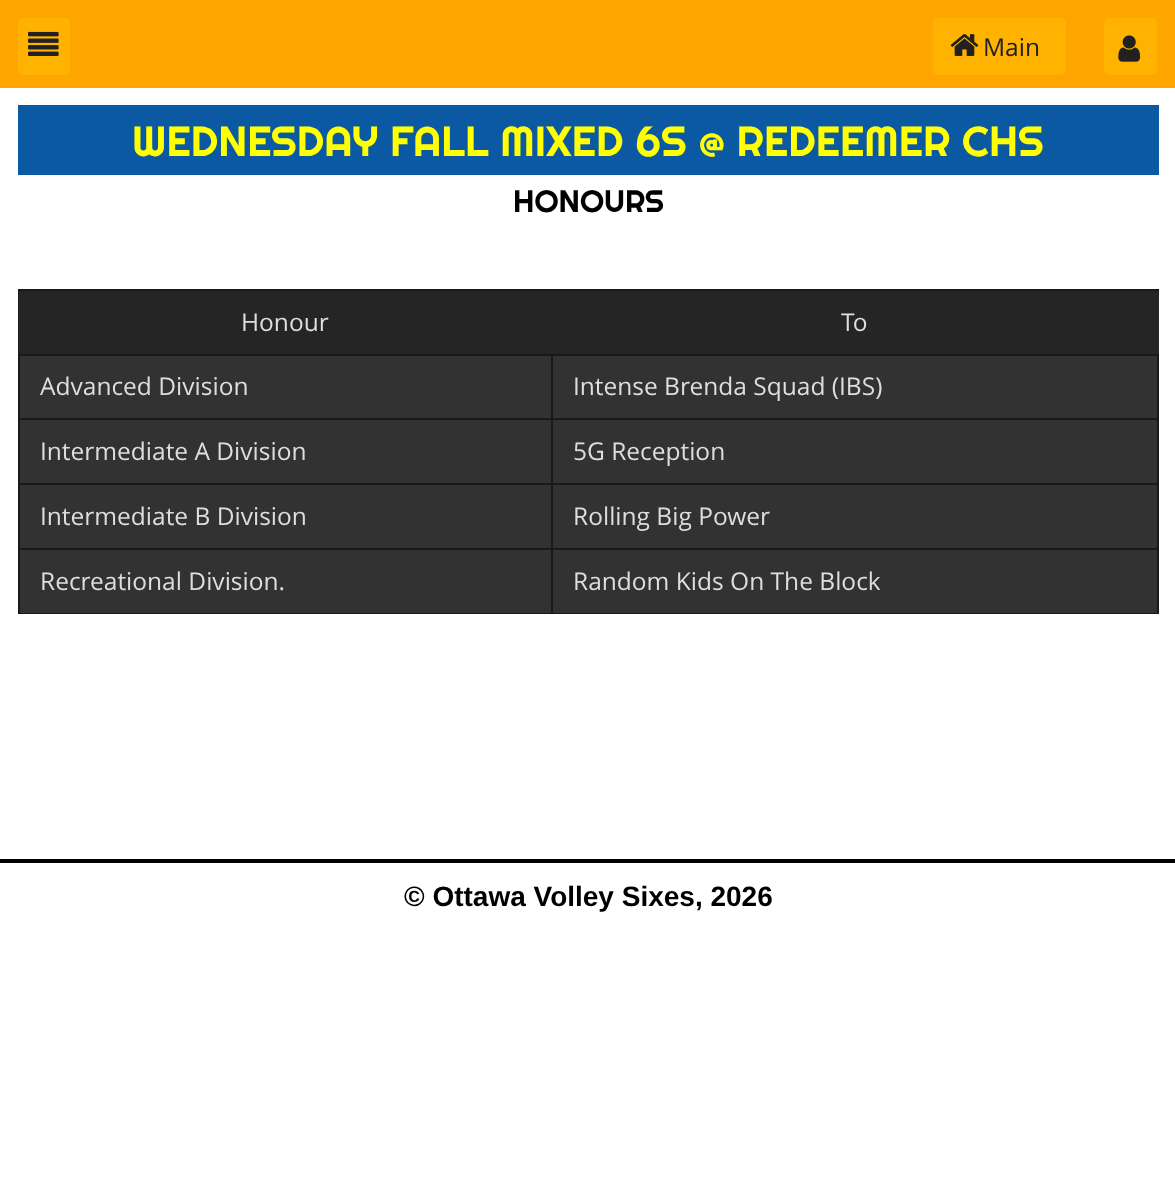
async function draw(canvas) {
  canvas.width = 1175
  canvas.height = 1185
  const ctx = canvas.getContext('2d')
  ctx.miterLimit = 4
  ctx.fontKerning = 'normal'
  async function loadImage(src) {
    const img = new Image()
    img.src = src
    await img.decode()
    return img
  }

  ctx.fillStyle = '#fff'
  ctx.fillRect(0, 0, 1175, 1185)
  ctx.fillStyle = '#ffa500'
  ctx.fillRect(0, 0, 1175, 88)
  ctx.fillStyle = '#ffb300'
  ctx.beginPath()
  ctx.roundRect(19, 19, 50, 55, 4)
  ctx.fill()
  ctx.strokeStyle = '#ffb300'
  ctx.lineWidth = 2
  ctx.stroke()
  ctx.drawImage(await loadImage('image0.png'), 28, 31, 31, 25)
  ctx.beginPath()
  ctx.roundRect(934, 19, 131, 55, 4)
  ctx.fill()
  ctx.stroke()
  ctx.drawImage(await loadImage('image1.png'), 950, 34, 29, 22)
  ctx.font = '24.5px Open Sans'
  ctx.fillStyle = '#212121'
  ctx.fillText('Main', 983, 56)
  ctx.fillStyle = '#ffb300'
  ctx.beginPath()
  ctx.roundRect(1105, 19, 51, 55, 4)
  ctx.fill()
  ctx.stroke()
  ctx.drawImage(await loadImage('image2.png'), 1118, 35, 23, 27)
  ctx.fillStyle = '#0b59a2'
  ctx.fillRect(18, 105, 1141, 70)
  ctx.font = '42px Righteous'
  ctx.fillStyle = '#ff0'
  ctx.fillText('WEDNESDAY FALL MIXED 6S @ REDEEMER CHS', 132, 156)
  ctx.font = '31px Righteous'
  ctx.fillStyle = '#000'
  ctx.fillText('HONOURS', 513, 212)
  ctx.fillStyle = '#191919'
  ctx.fillRect(18, 289, 1141, 2)
  ctx.fillRect(18, 354, 1141, 2)
  ctx.fillRect(18, 418, 1141, 2)
  ctx.fillRect(18, 483, 1141, 2)
  ctx.fillRect(18, 548, 1141, 2)
  ctx.fillRect(1157, 548, 2, 66)
  ctx.fillRect(18, 613, 1141, 1)
  ctx.fillRect(18, 548, 2, 66)
  ctx.fillRect(18, 483, 2, 67)
  ctx.fillRect(18, 418, 2, 67)
  ctx.fillRect(18, 354, 2, 66)
  ctx.fillRect(18, 289, 2, 66)
  ctx.fillRect(1157, 483, 2, 67)
  ctx.fillRect(1157, 418, 2, 67)
  ctx.fillRect(1157, 354, 2, 66)
  ctx.fillRect(1157, 289, 2, 66)
  ctx.fillStyle = '#252525'
  ctx.fillRect(19, 291, 1140, 63)
  ctx.font = '24.5px Open Sans'
  ctx.fillStyle = '#dedede'
  ctx.fillText('Honour', 241, 331)
  ctx.fillText('To', 841, 331)
  ctx.fillStyle = '#323232'
  ctx.fillRect(20, 356, 1137, 62)
  ctx.fillStyle = '#dedede'
  ctx.fillText('Advanced Division', 40, 395)
  ctx.fillText('Intense Brenda Squad (IBS)', 573, 395)
  ctx.fillStyle = '#323232'
  ctx.fillRect(20, 420, 1137, 63)
  ctx.fillStyle = '#dedede'
  ctx.fillText('Intermediate A Division', 40, 460)
  ctx.fillText('5G Reception', 573, 460)
  ctx.fillStyle = '#323232'
  ctx.fillRect(20, 485, 1137, 63)
  ctx.fillStyle = '#dedede'
  ctx.fillText('Intermediate B Division', 40, 525)
  ctx.fillText('Rolling Big Power', 573, 525)
  ctx.fillStyle = '#323232'
  ctx.fillRect(20, 550, 1137, 63)
  ctx.fillStyle = '#dedede'
  ctx.fillText('Recreational Division.', 40, 590)
  ctx.fillStyle = '#191919'
  ctx.fillRect(551, 354, 2, 260)
  ctx.fillStyle = '#dedede'
  ctx.fillText('Random Kids On The Block', 573, 590)
  ctx.fillStyle = '#000'
  ctx.fillRect(0, 859, 1175, 4)
  ctx.font = 'bold 28px Liberation Sans'
  ctx.fillText('© Ottawa Volley Sixes, 2026', 404, 906)
}

draw(document.querySelector('canvas'))
